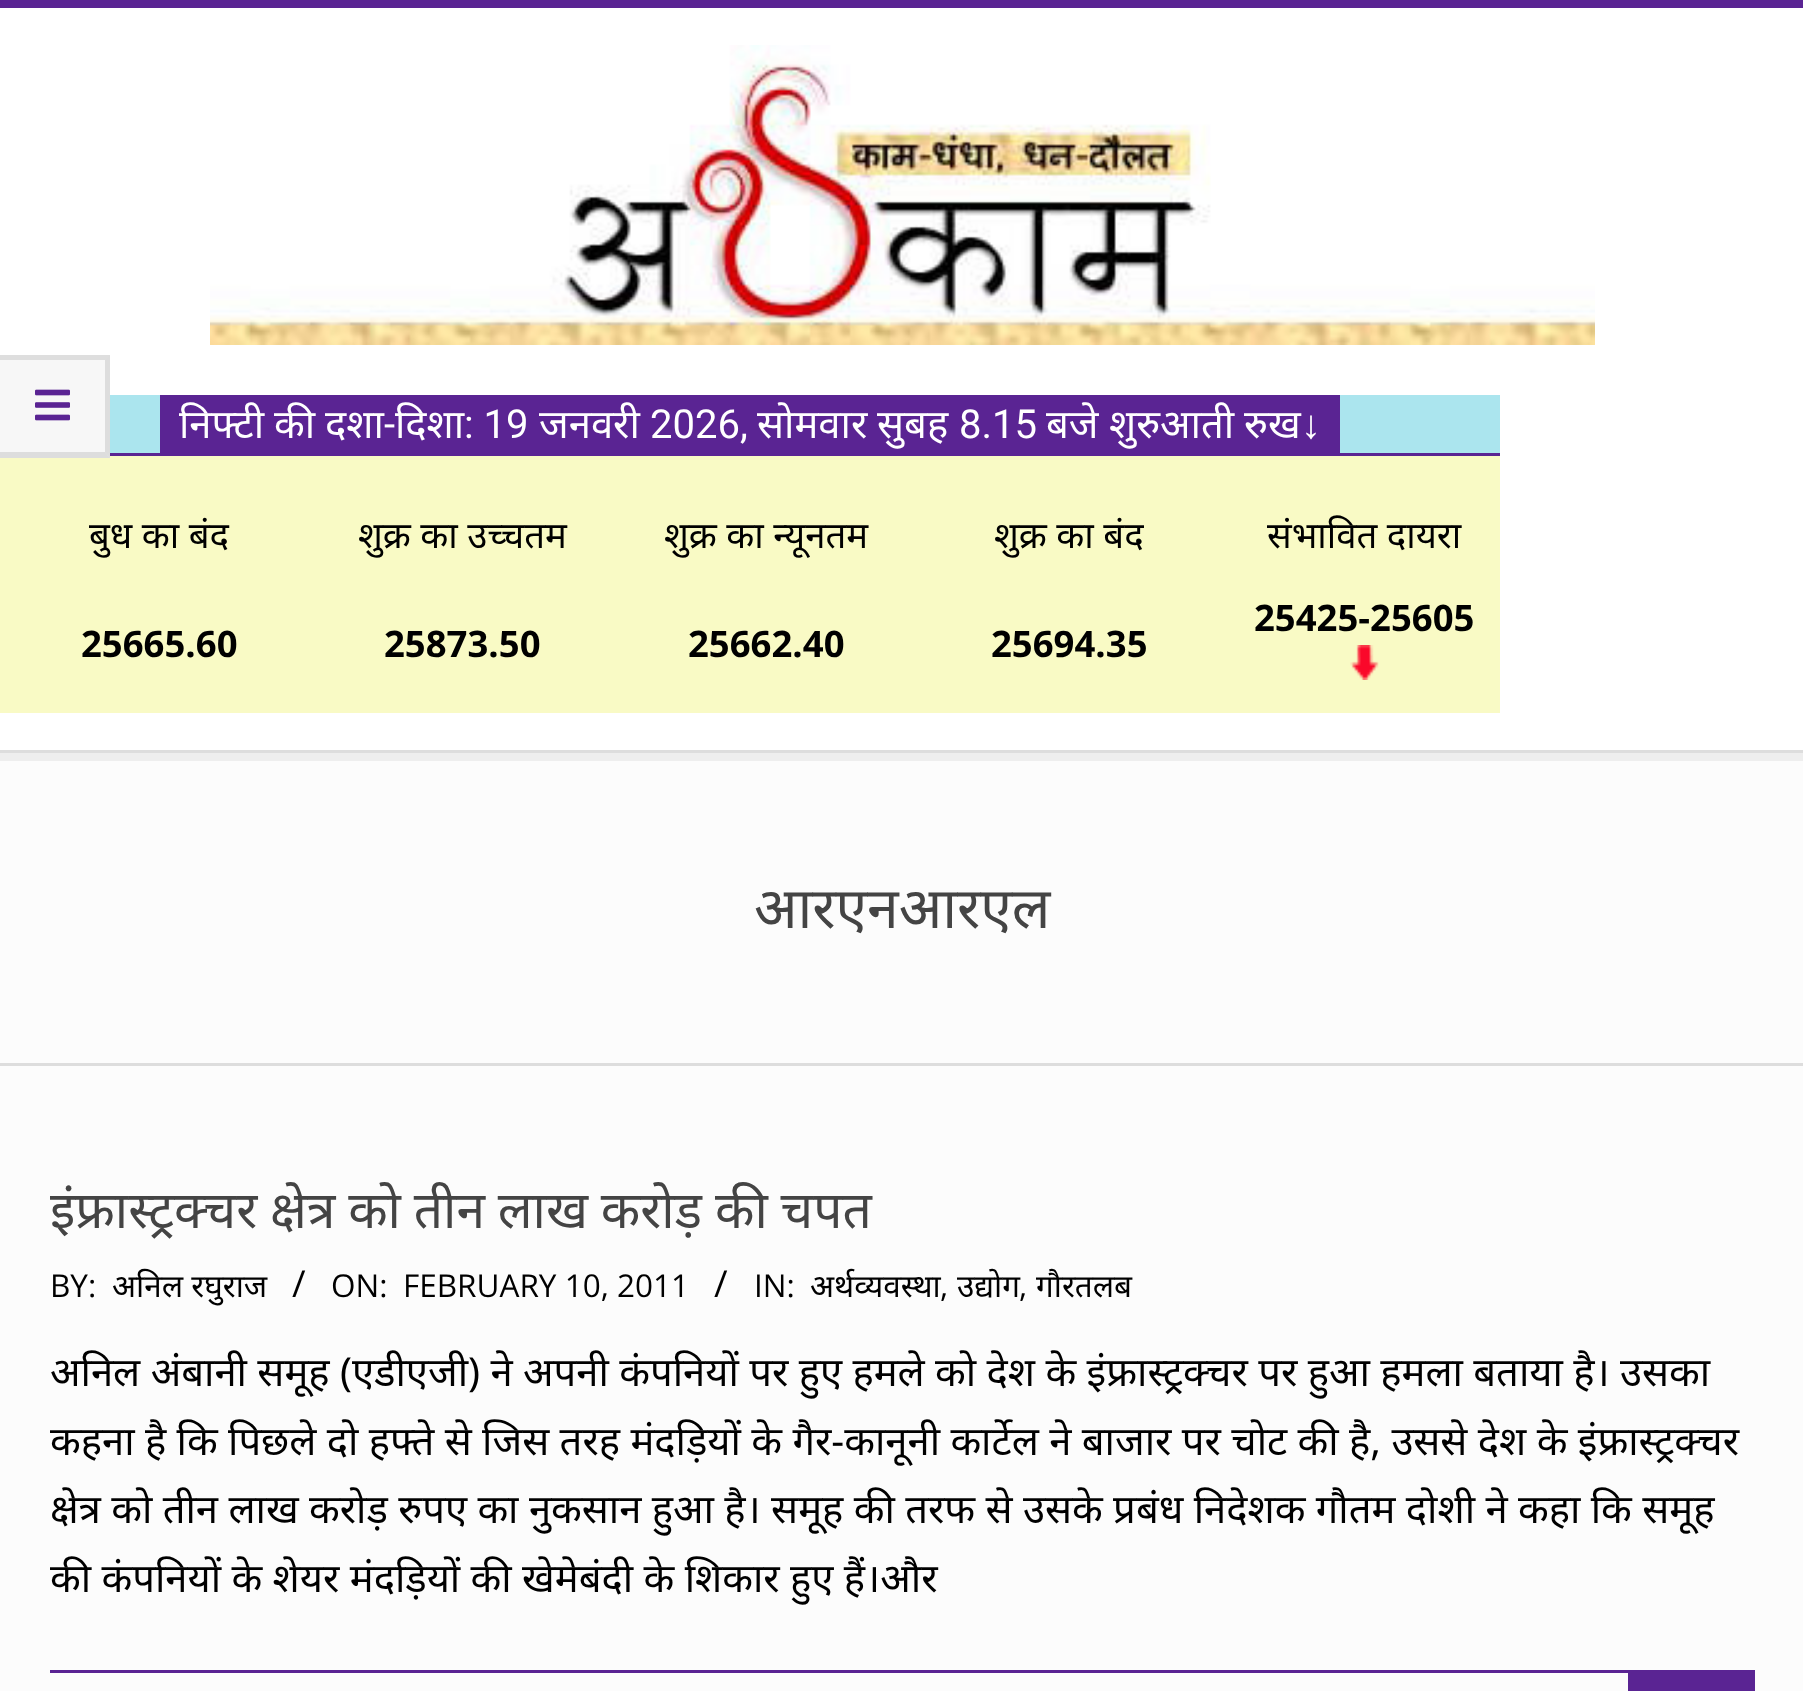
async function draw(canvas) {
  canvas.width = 1803
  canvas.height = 1691
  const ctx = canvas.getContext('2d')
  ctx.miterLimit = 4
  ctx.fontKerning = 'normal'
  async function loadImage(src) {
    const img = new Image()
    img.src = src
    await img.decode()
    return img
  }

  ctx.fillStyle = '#fff'
  ctx.fillRect(0, 0, 1803, 1691)
  ctx.fillStyle = '#5a2493'
  ctx.fillRect(0, 0, 1803, 8)
  ctx.fillStyle = '#eee'
  ctx.fillRect(0, 753, 1803, 8)
  ctx.fillStyle = '#f9fac5'
  ctx.fillRect(0, 456, 1500, 257)
  ctx.fillStyle = '#f7f7f7'
  ctx.fillRect(0, 355, 110, 103)
  ctx.fillStyle = '#dedede'
  ctx.beginPath()
  ctx.moveTo(0, 355)
  ctx.lineTo(110, 355)
  ctx.lineTo(105, 360)
  ctx.lineTo(0, 360)
  ctx.closePath()
  ctx.fill()
  ctx.fillStyle = '#0000001a'
  ctx.beginPath()
  ctx.moveTo(110, 355)
  ctx.lineTo(110, 458)
  ctx.lineTo(105, 452)
  ctx.lineTo(105, 360)
  ctx.closePath()
  ctx.fill()
  ctx.beginPath()
  ctx.moveTo(110, 458)
  ctx.lineTo(0, 458)
  ctx.lineTo(0, 452)
  ctx.lineTo(105, 452)
  ctx.closePath()
  ctx.fill()
  ctx.drawImage(await loadImage('image0.png'), 35, 389, 35, 32)
  ctx.fillStyle = '#ddd'
  ctx.fillRect(0, 750, 1803, 3)
  ctx.drawImage(await loadImage('image1.png'), 210, 45, 1385, 300)
  ctx.fillStyle = '#abe5ee'
  ctx.fillRect(110, 395, 1390, 58)
  ctx.fillStyle = '#5a2493'
  ctx.fillRect(160, 395, 1180, 58)
  ctx.font = '40px Noto Sans'
  ctx.fillStyle = '#fff'
  ctx.fillText('निफ्टी', 179, 438)
  ctx.fillText('की', 274, 438)
  ctx.fillText('दशा', 325, 438)
  ctx.font = '40px Roboto'
  ctx.fillText('-', 384, 438)
  ctx.font = '40px Noto Sans'
  ctx.fillText('दिशा', 395, 438)
  ctx.font = '40px Roboto'
  ctx.fillText(': 19', 464, 438)
  ctx.font = '40px Noto Sans'
  ctx.fillText('जनवरी', 539, 438)
  ctx.font = '40px Roboto'
  ctx.fillText('2026,', 650, 438)
  ctx.font = '40px Noto Sans'
  ctx.fillText('सोमवार', 757, 438)
  ctx.fillText('सुबह', 877, 438)
  ctx.font = '40px Roboto'
  ctx.fillText('8.15', 959, 438)
  ctx.font = '40px Noto Sans'
  ctx.fillText('बजे', 1046, 438)
  ctx.fillText('शुरुआती', 1109, 438)
  ctx.fillText('रुख', 1244, 438)
  ctx.font = '40px Liberation Sans'
  ctx.fillText('↓', 1301, 438)
  ctx.fillStyle = '#5a2493'
  ctx.fillRect(110, 453, 1390, 3)
  ctx.font = '36.5px Noto Sans'
  ctx.fillStyle = '#000'
  ctx.fillText('बुध का बंद', 89, 548)
  ctx.fillText('शुक्र का उच्चतम', 358, 548)
  ctx.fillText('शुक्र का न्यूनतम', 664, 548)
  ctx.fillText('शुक्र का बंद', 994, 548)
  ctx.fillText('संभावित दायरा', 1267, 548)
  ctx.font = 'bold 36.5px Open Sans'
  ctx.fillText('25425-25605', 1254, 631)
  ctx.drawImage(await loadImage('image2.png'), 1350, 645, 29, 35)
  ctx.fillText('25665.60', 81, 657)
  ctx.fillText('25873.50', 384, 657)
  ctx.fillText('25662.40', 688, 657)
  ctx.fillText('25694.35', 991, 657)
  ctx.fillStyle = '#fcfcfc'
  ctx.fillRect(0, 761, 1803, 930)
  ctx.fillStyle = '#ddd'
  ctx.fillRect(0, 1063, 1803, 3)
  ctx.font = '57px Noto Sans'
  ctx.fillStyle = '#444'
  ctx.fillText('आरएनआरएल', 754, 928)
  ctx.wordSpacing = '-0.5px'
  ctx.font = '51.4px Noto Sans'
  ctx.fillText('इंफ्रास्ट्रक्चर क्षेत्र को तीन लाख करोड़ की चपत', 50, 1228)
  ctx.wordSpacing = '0px'
  ctx.font = '31.5px Open Sans'
  ctx.fillStyle = '#000'
  ctx.fillText('BY:', 50, 1297)
  ctx.font = '31.5px Noto Sans'
  ctx.fillText('अनिल रघुराज', 112, 1297)
  ctx.font = '37px Open Sans'
  ctx.fillText('/', 292, 1297)
  ctx.font = '31.5px Open Sans'
  ctx.fillText('ON:', 331, 1297)
  ctx.fillText('FEBRUARY 10, 2011', 403, 1297)
  ctx.font = '37px Open Sans'
  ctx.fillText('/', 714, 1297)
  ctx.font = '31.5px Open Sans'
  ctx.fillText('IN:', 754, 1297)
  ctx.font = '31.5px Noto Sans'
  ctx.fillText('अर्थव्यवस्था', 810, 1297)
  ctx.font = '31.5px Open Sans'
  ctx.fillText(',', 940, 1297)
  ctx.font = '31.5px Noto Sans'
  ctx.fillText('उद्योग', 957, 1297)
  ctx.font = '31.5px Open Sans'
  ctx.fillText(',', 1019, 1297)
  ctx.font = '31.5px Noto Sans'
  ctx.fillText('गौरतलब', 1036, 1297)
  ctx.font = '40px Noto Sans'
  ctx.fillText('अनिल अंबानी समूह (एडीएजी) ने अपनी कंपनियों पर हुए हमले को देश के इंफ्रास्ट्रक्चर पर हुआ हमला बताया है। उसका', 50, 1386)
  ctx.fillText('कहना है कि पिछले दो हफ्ते से जिस तरह मंदड़ियों के गैर-कानूनी कार्टेल ने बाजार पर चोट की है, उससे देश के इंफ्रास्ट्रक्चर', 50, 1455)
  ctx.fillText('क्षेत्र को तीन लाख करोड़ रुपए का नुकसान हुआ है। समूह की तरफ से उसके प्रबंध निदेशक गौतम दोशी ने कहा कि समूह', 50, 1523)
  ctx.fillText('की कंपनियों के शेयर मंदड़ियों की खेमेबंदी के शिकार हुए हैं।और', 50, 1592)
  ctx.fillStyle = '#5a2493'
  ctx.fillRect(50, 1670, 1705, 3)
  ctx.fillRect(1628, 1673, 127, 18)
}

draw(document.querySelector('canvas'))
